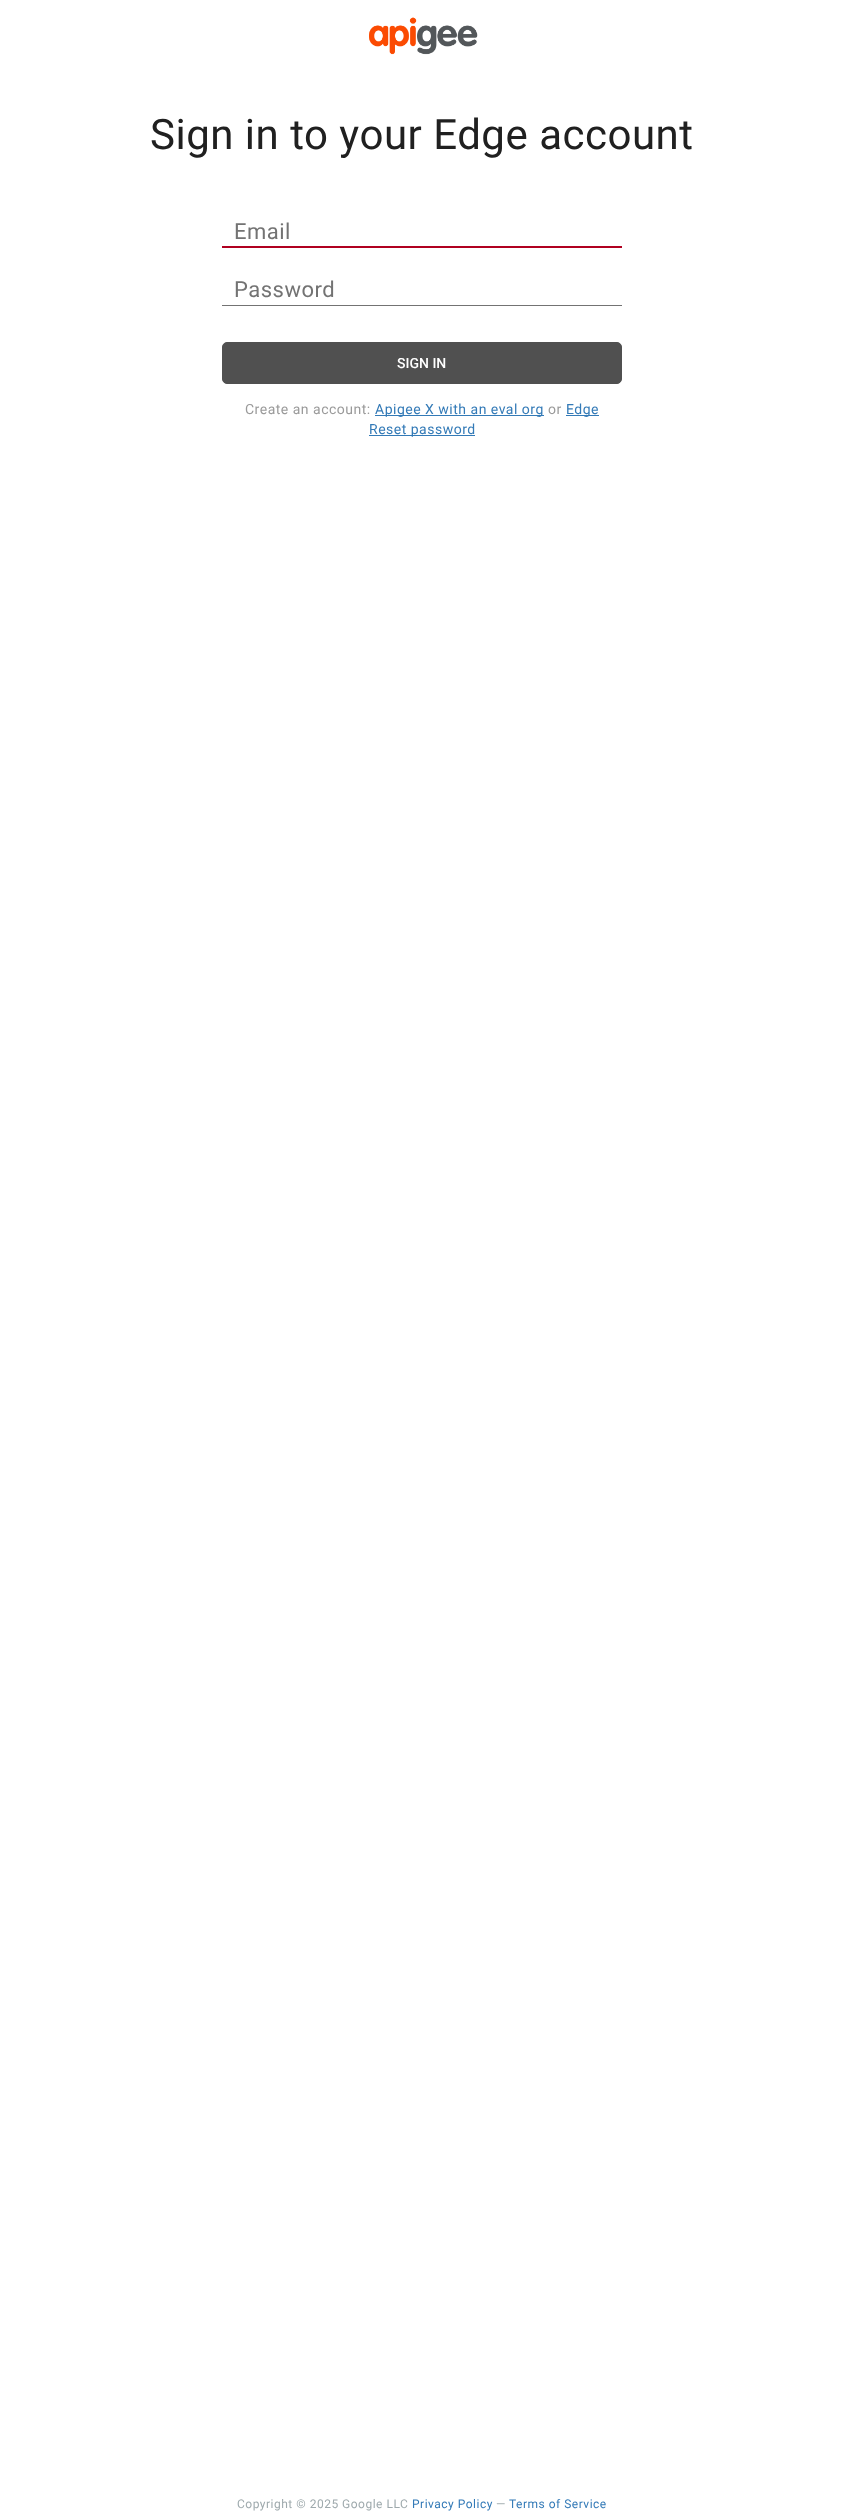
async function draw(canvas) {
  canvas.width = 844
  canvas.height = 2513
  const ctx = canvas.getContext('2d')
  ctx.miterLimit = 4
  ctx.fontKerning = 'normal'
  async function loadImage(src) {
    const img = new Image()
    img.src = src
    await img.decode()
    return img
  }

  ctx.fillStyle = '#fff'
  ctx.fillRect(0, 0, 844, 2513)
  ctx.drawImage(await loadImage('image0.png'), 369, 17, 109, 38)
  ctx.letterSpacing = '0.5px'
  ctx.font = '42px Roboto'
  ctx.fillStyle = '#202020'
  ctx.fillText('Sign in to your Edge account', 150, 149)
  ctx.font = '22px Roboto'
  ctx.fillStyle = '#737373'
  ctx.fillText('Email', 234, 239)
  ctx.fillStyle = '#b00020'
  ctx.fillRect(222, 246, 400, 2)
  ctx.fillStyle = '#737373'
  ctx.fillText('Password', 234, 297)
  ctx.fillRect(222, 305, 400, 1)
  ctx.fillStyle = '#505050'
  ctx.beginPath()
  ctx.roundRect(222.5, 342.5, 399, 41, 4.5)
  ctx.fill()
  ctx.strokeStyle = '#505050'
  ctx.stroke()
  ctx.letterSpacing = '0px'
  ctx.font = '500 14px Roboto'
  ctx.fillStyle = '#fff'
  ctx.fillText('SIGN IN', 397, 368)
  ctx.letterSpacing = '0.5px'
  ctx.font = '14px Roboto'
  ctx.fillStyle = '#9a9a9a'
  ctx.fillText('Create an account:', 245, 414)
  ctx.fillStyle = '#337ab7'
  ctx.fillRect(375, 415, 169, 1)
  ctx.fillText('Apigee X with an eval org', 375, 414)
  ctx.fillStyle = '#9a9a9a'
  ctx.fillText('or', 548, 414)
  ctx.fillStyle = '#337ab7'
  ctx.fillRect(566, 415, 33, 1)
  ctx.fillText('Edge', 566, 414)
  ctx.fillRect(369, 435, 106, 1)
  ctx.fillText('Reset password', 369, 434)
  ctx.font = '12px Roboto'
  ctx.fillStyle = '#9faaad'
  ctx.fillText('Copyright © 2025 Google LLC', 237, 2508)
  ctx.fillStyle = '#337ab7'
  ctx.fillText('Privacy Policy', 412, 2508)
  ctx.fillStyle = '#9faaad'
  ctx.fillText('—', 496, 2508)
  ctx.fillStyle = '#337ab7'
  ctx.fillText('Terms of Service', 509, 2508)
}

draw(document.querySelector('canvas'))
